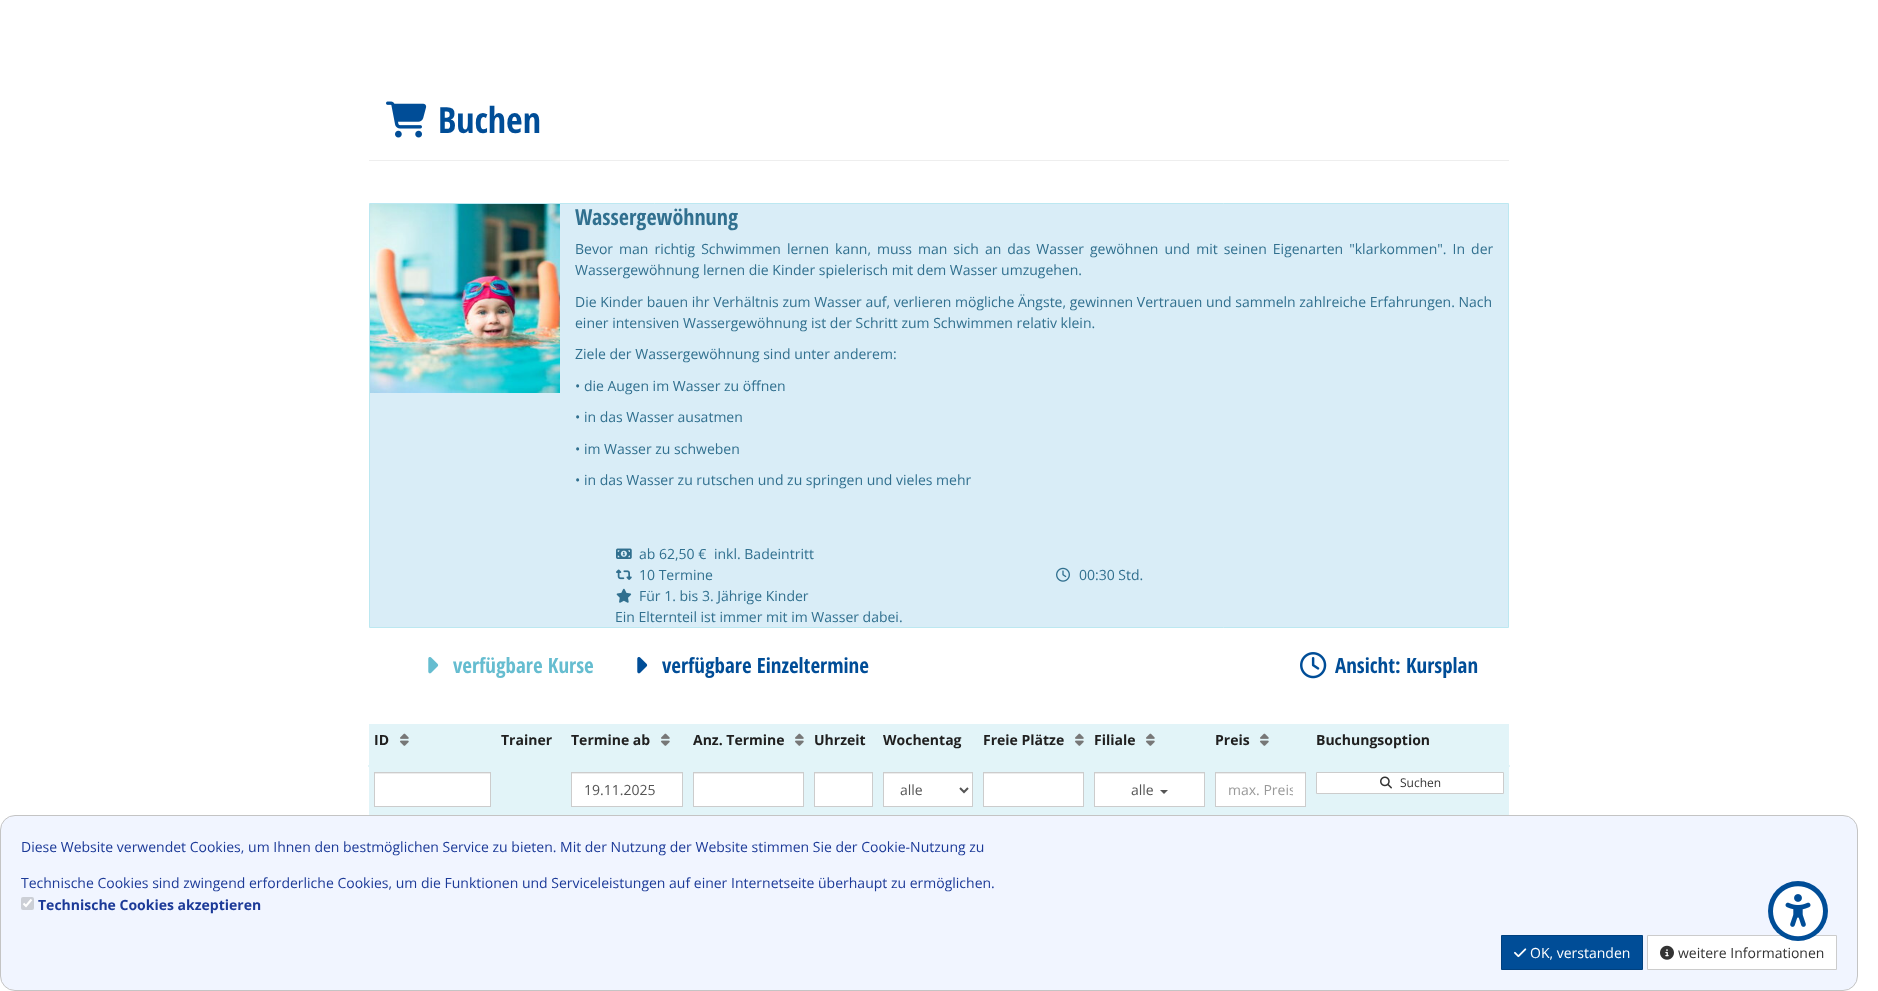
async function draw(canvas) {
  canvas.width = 1878
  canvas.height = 991
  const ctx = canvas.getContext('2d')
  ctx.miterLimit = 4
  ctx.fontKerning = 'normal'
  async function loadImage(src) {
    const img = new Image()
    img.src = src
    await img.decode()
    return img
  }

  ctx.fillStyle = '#fff'
  ctx.fillRect(0, 0, 1878, 991)
  ctx.fillStyle = '#eee'
  ctx.fillRect(369, 160, 1140, 1)
  ctx.drawImage(await loadImage('image0.png'), 386, 101, 41, 37)
  ctx.font = 'bold 36px Open Sans Condensed'
  ctx.fillStyle = '#004d97'
  ctx.fillText('Buchen', 438, 133)
  ctx.fillStyle = '#d9edf7'
  ctx.beginPath()
  ctx.rect(369.5, 203.5, 1139, 424)
  ctx.fill()
  ctx.strokeStyle = '#bce8f1'
  ctx.stroke()
  ctx.drawImage(await loadImage('image1.png'), 370, 204, 190, 189)
  ctx.font = 'bold 22px Open Sans Condensed'
  ctx.fillStyle = '#31708f'
  ctx.fillText('Wassergewöhnung', 575, 225)
  ctx.wordSpacing = '2.4px'
  ctx.font = '14px Open Sans'
  ctx.fillText('Bevor man richtig Schwimmen lernen kann, muss man sich an das Wasser gewöhnen und mit seinen Eigenarten "klarkommen". In der', 575, 254)
  ctx.wordSpacing = '0px'
  ctx.fillText('Wassergewöhnung lernen die Kinder spielerisch mit dem Wasser umzugehen.', 575, 275)
  ctx.fillText('Die Kinder bauen ihr Verhältnis zum Wasser auf, verlieren mögliche Ängste, gewinnen Vertrauen und sammeln zahlreiche Erfahrungen. Nach', 575, 307)
  ctx.fillText('einer intensiven Wassergewöhnung ist der Schritt zum Schwimmen relativ klein.', 575, 328)
  ctx.fillText('Ziele der Wassergewöhnung sind unter anderem:', 575, 359)
  ctx.fillText('• die Augen im Wasser zu öffnen', 575, 391)
  ctx.fillText('• in das Wasser ausatmen', 575, 422)
  ctx.fillText('• im Wasser zu schweben', 575, 454)
  ctx.fillText('• in das Wasser zu rutschen und zu springen und vieles mehr', 575, 485)
  ctx.drawImage(await loadImage('image2.png'), 616, 548, 16, 11)
  ctx.fillText('ab 62,50 €', 639, 559)
  ctx.fillText('inkl. Badeintritt', 714, 559)
  ctx.drawImage(await loadImage('image3.png'), 616, 569, 16, 11)
  ctx.fillText('10 Termine', 639, 580)
  ctx.drawImage(await loadImage('image4.png'), 1056, 567, 14, 15)
  ctx.fillText('00:30 Std.', 1079, 580)
  ctx.drawImage(await loadImage('image5.png'), 616, 588, 16, 15)
  ctx.fillText('Für 1. bis 3. Jährige Kinder', 639, 601)
  ctx.fillText('Ein Elternteil ist immer mit im Wasser dabei.', 615, 622)
  ctx.drawImage(await loadImage('image6.png'), 428, 657, 11, 17)
  ctx.font = 'bold 21px Open Sans Condensed'
  ctx.fillStyle = '#66bdd0'
  ctx.fillText('verfügbare Kurse', 453, 673)
  ctx.drawImage(await loadImage('image7.png'), 637, 657, 11, 17)
  ctx.fillStyle = '#004d97'
  ctx.fillText('verfügbare Einzeltermine', 662, 673)
  ctx.drawImage(await loadImage('image8.png'), 1300, 652, 27, 27)
  ctx.fillText('Ansicht: Kursplan', 1335, 673)
  ctx.fillStyle = '#e2f4f8'
  ctx.fillRect(369, 724, 1140, 91)
  ctx.fillRect(368, 765, 1, 2)
  ctx.font = 'bold 14px Open Sans'
  ctx.fillStyle = '#202020'
  ctx.fillText('ID', 374, 745)
  ctx.drawImage(await loadImage('image9.png'), 400, 733, 9, 13)
  ctx.fillText('Trainer', 501, 745)
  ctx.fillText('Termine ab', 571, 745)
  ctx.drawImage(await loadImage('image9.png'), 661, 733, 9, 13)
  ctx.fillText('Anz. Termine', 693, 745)
  ctx.drawImage(await loadImage('image9.png'), 795, 733, 9, 13)
  ctx.fillText('Uhrzeit', 814, 745)
  ctx.fillText('Wochentag', 883, 745)
  ctx.fillText('Freie Plätze', 983, 745)
  ctx.drawImage(await loadImage('image9.png'), 1075, 733, 9, 13)
  ctx.fillText('Filiale', 1094, 745)
  ctx.drawImage(await loadImage('image9.png'), 1146, 733, 9, 13)
  ctx.fillText('Preis', 1215, 745)
  ctx.drawImage(await loadImage('image9.png'), 1260, 733, 9, 13)
  ctx.fillStyle = '#e2f4f8'
  ctx.fillRect(1509, 765, 1, 2)
  ctx.fillStyle = '#202020'
  ctx.fillText('Buchungsoption', 1316, 745)
  ctx.fillStyle = '#fff'
  ctx.fillRect(375, 774, 115, 32)
  ctx.fillStyle = '#ececec'
  ctx.fillRect(375, 773, 115, 1)
  ctx.strokeStyle = '#ccc'
  ctx.strokeRect(374.5, 772.5, 116, 34)
  ctx.fillStyle = '#fff'
  ctx.fillRect(694, 774, 109, 32)
  ctx.fillStyle = '#ececec'
  ctx.fillRect(694, 773, 109, 1)
  ctx.strokeRect(693.5, 772.5, 110, 34)
  ctx.fillStyle = '#fff'
  ctx.fillRect(815, 774, 57, 32)
  ctx.fillStyle = '#ececec'
  ctx.fillRect(815, 773, 57, 1)
  ctx.strokeRect(814.5, 772.5, 58, 34)
  ctx.fillStyle = '#fff'
  ctx.fillRect(984, 774, 99, 32)
  ctx.fillStyle = '#ececec'
  ctx.fillRect(984, 773, 99, 1)
  ctx.strokeRect(983.5, 772.5, 100, 34)
  ctx.fillStyle = '#fff'
  ctx.beginPath()
  ctx.rect(1316.5, 772.5, 187, 21)
  ctx.fill()
  ctx.stroke()
  ctx.drawImage(await loadImage('image10.png'), 1380, 776, 12, 13)
  ctx.font = '12px Open Sans'
  ctx.fillStyle = '#333'
  ctx.fillText('Suchen', 1400, 787)
  ctx.fillStyle = '#fff'
  ctx.fillRect(572, 774, 110, 32)
  ctx.fillStyle = '#ececec'
  ctx.fillRect(572, 773, 110, 1)
  ctx.strokeRect(571.5, 772.5, 111, 34)
  ctx.font = '14px Open Sans'
  ctx.fillStyle = '#555'
  ctx.fillText('19.11.2025', 584, 795)
  ctx.fillStyle = '#fff'
  ctx.fillRect(884, 774, 88, 32)
  ctx.fillStyle = '#ececec'
  ctx.fillRect(884, 773, 88, 1)
  ctx.strokeRect(883.5, 772.5, 89, 34)
  ctx.beginPath()
  ctx.moveTo(960, 788)
  ctx.lineTo(964, 792)
  ctx.lineTo(968, 788)
  ctx.strokeStyle = '#555'
  ctx.lineWidth = 2
  ctx.stroke()
  ctx.fillStyle = '#555'
  ctx.fillText('alle', 900, 795)
  ctx.fillStyle = '#fff'
  ctx.fillRect(1095, 774, 109, 32)
  ctx.fillStyle = '#ececec'
  ctx.fillRect(1095, 773, 109, 1)
  ctx.strokeStyle = '#ccc'
  ctx.lineWidth = 1
  ctx.strokeRect(1094.5, 772.5, 110, 34)
  ctx.fillStyle = '#555'
  ctx.fillText('alle', 1131, 795)
  ctx.beginPath()
  ctx.moveTo(1160, 790)
  ctx.lineTo(1168, 790)
  ctx.lineTo(1164, 794)
  ctx.closePath()
  ctx.fill()
  ctx.fillStyle = '#fff'
  ctx.fillRect(1216, 774, 89, 32)
  ctx.fillStyle = '#ececec'
  ctx.fillRect(1216, 773, 89, 1)
  ctx.strokeRect(1215.5, 772.5, 90, 34)
  ctx.save()
  ctx.beginPath()
  ctx.rect(1228, 780, 65, 19)
  ctx.clip()
  ctx.fillStyle = '#999'
  ctx.fillText('max. Preis', 1228, 795)
  ctx.restore()
  ctx.fillStyle = '#f1f5ff'
  ctx.beginPath()
  ctx.roundRect(0.5, 815.5, 1857, 175, 14.5)
  ctx.fill()
  ctx.strokeStyle = '#c4c4c4'
  ctx.stroke()
  ctx.fillStyle = '#1c3a98'
  ctx.fillText('Diese Website verwendet Cookies, um Ihnen den bestmöglichen Service zu bieten. Mit der Nutzung der Website stimmen Sie der Cookie-Nutzung zu', 21, 852)
  ctx.fillText('Technische Cookies sind zwingend erforderliche Cookies, um die Funktionen und Serviceleistungen auf einer Internetseite überhaupt zu ermöglichen.', 21, 888)
  ctx.fillStyle = '#cccfd6'
  ctx.beginPath()
  ctx.roundRect(21, 897, 13, 13, 2)
  ctx.fill()
  ctx.beginPath()
  ctx.moveTo(23.5, 903.5)
  ctx.lineTo(26, 906)
  ctx.lineTo(31.5, 899.5)
  ctx.strokeStyle = '#fff'
  ctx.lineWidth = 2.1
  ctx.stroke()
  ctx.font = 'bold 14px Open Sans'
  ctx.fillStyle = '#1c3a98'
  ctx.fillText('Technische Cookies akzeptieren', 38, 910)
  ctx.fillStyle = '#004d97'
  ctx.beginPath()
  ctx.rect(1501.5, 935.5, 141, 34)
  ctx.fill()
  ctx.strokeStyle = '#00407e'
  ctx.lineWidth = 1
  ctx.stroke()
  ctx.drawImage(await loadImage('image11.png'), 1514, 948, 13, 10)
  ctx.font = '14px Open Sans'
  ctx.fillStyle = '#fff'
  ctx.fillText('OK, verstanden', 1530, 958)
  ctx.beginPath()
  ctx.rect(1647.5, 935.5, 189, 34)
  ctx.fill()
  ctx.strokeStyle = '#ccc'
  ctx.stroke()
  ctx.drawImage(await loadImage('image12.png'), 1660, 945, 14, 15)
  ctx.fillStyle = '#333'
  ctx.fillText('weitere Informationen', 1678, 958)
  ctx.fillStyle = '#004d97'
  ctx.beginPath()
  ctx.arc(1798, 911, 30, 0, 2 * Math.PI)
  ctx.fill()
  ctx.drawImage(await loadImage('image13.png'), 1773, 886, 50, 51)
}

draw(document.querySelector('canvas'))
